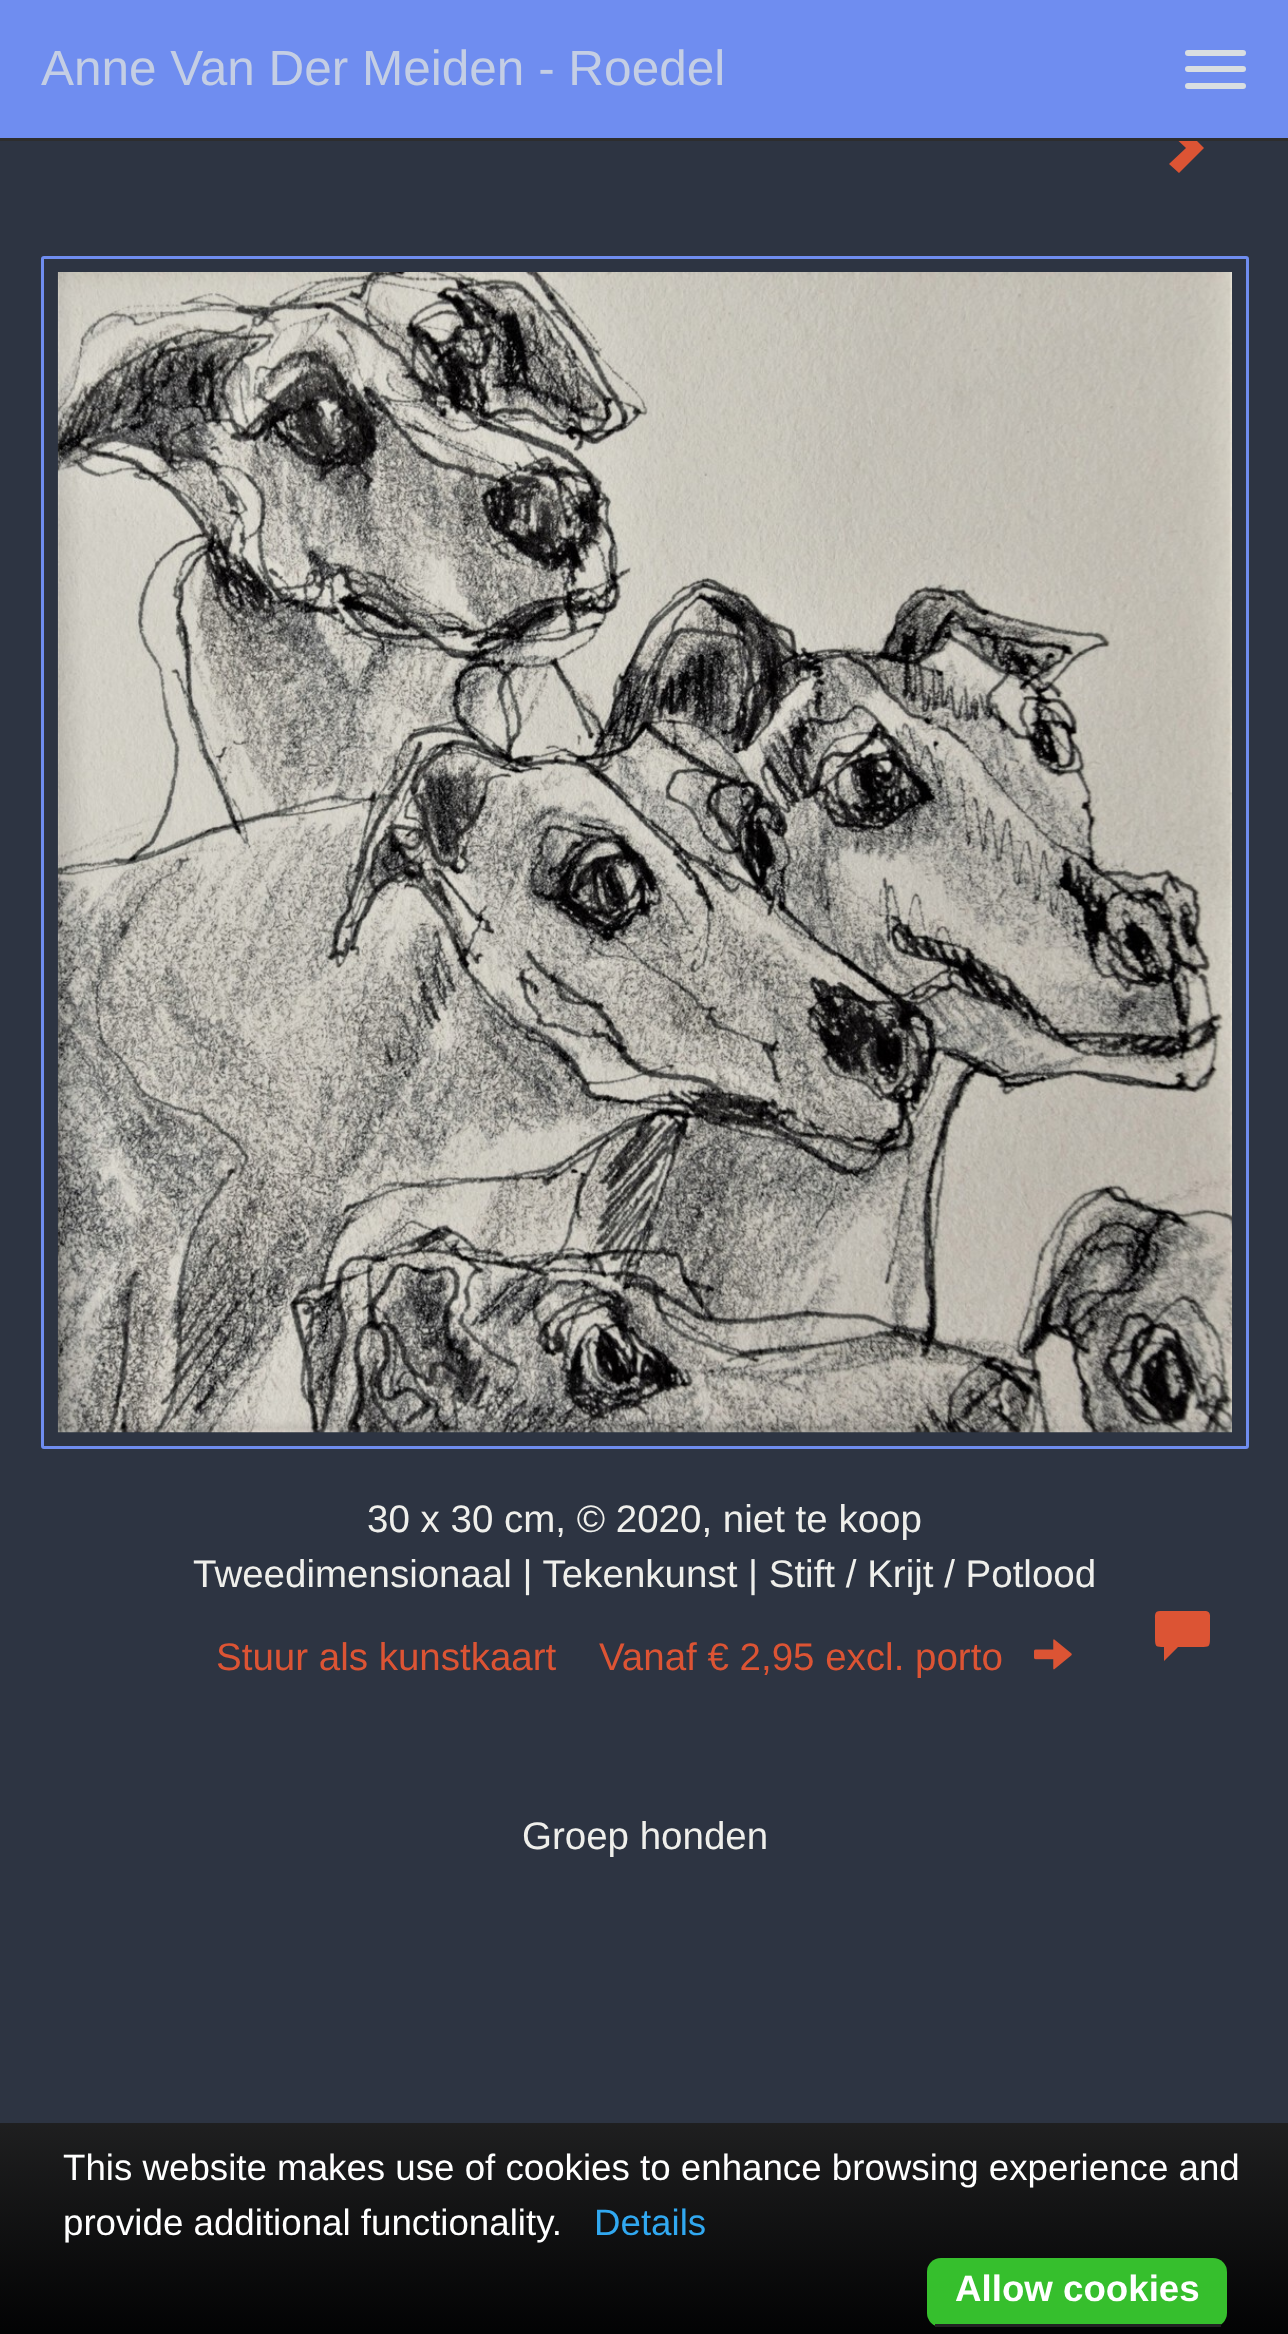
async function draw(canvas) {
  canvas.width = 1288
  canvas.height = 2334
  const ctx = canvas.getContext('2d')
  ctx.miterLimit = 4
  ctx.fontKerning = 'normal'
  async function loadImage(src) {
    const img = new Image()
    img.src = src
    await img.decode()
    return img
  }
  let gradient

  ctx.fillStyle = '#2d3442'
  ctx.fillRect(0, 0, 1288, 2334)
  ctx.fillStyle = '#dc5434'
  ctx.beginPath()
  ctx.moveTo(1204, 148)
  ctx.lineTo(1179, 173)
  ctx.lineTo(1169, 164)
  ctx.lineTo(1186, 148)
  ctx.lineTo(1169, 132)
  ctx.lineTo(1179, 123)
  ctx.closePath()
  ctx.fill()
  ctx.fillStyle = '#6f8df0'
  ctx.fillRect(0, 0, 1288, 138)
  ctx.fillStyle = '#2d2d2d'
  ctx.fillRect(0, 138, 1288, 3)
  ctx.font = '49.5px Liberation Sans'
  ctx.fillStyle = '#c4cee4'
  ctx.fillText('Anne Van Der Meiden - Roedel', 41, 85)
  ctx.fillStyle = '#d9dee1'
  ctx.beginPath()
  ctx.roundRect(1185, 50, 61, 6, 3)
  ctx.fill()
  ctx.beginPath()
  ctx.roundRect(1185, 66, 61, 6, 3)
  ctx.fill()
  ctx.beginPath()
  ctx.roundRect(1185, 83, 61, 6, 3)
  ctx.fill()
  ctx.beginPath()
  ctx.roundRect(42.5, 257.5, 1205, 1190, 1.5)
  ctx.strokeStyle = '#6f8df0'
  ctx.lineWidth = 3
  ctx.stroke()
  ctx.drawImage(await loadImage('image0.png'), 57, 272, 1175, 1161)
  ctx.font = '38.5px Liberation Sans'
  ctx.fillStyle = '#efefeb'
  ctx.fillText('30 x 30 cm, © 2020, niet te koop', 367, 1532)
  ctx.fillText('Tweedimensionaal | Tekenkunst | Stift / Krijt / Potlood', 193, 1587)
  ctx.fillStyle = '#dc5434'
  ctx.fillText('Stuur als kunstkaart', 216, 1670)
  ctx.fillText('Vanaf € 2,95 excl. porto', 599, 1670)
  ctx.drawImage(await loadImage('image1.png'), 1034, 1639, 38, 31)
  ctx.beginPath()
  ctx.moveTo(1160, 1611)
  ctx.lineTo(1206, 1611)
  ctx.bezierCurveTo(1211, 1612, 1210, 1616, 1210, 1620)
  ctx.lineTo(1210, 1638)
  ctx.bezierCurveTo(1210, 1647, 1209, 1647, 1201, 1647)
  ctx.lineTo(1178, 1647)
  ctx.lineTo(1164, 1661)
  ctx.lineTo(1164, 1647)
  ctx.bezierCurveTo(1156, 1647, 1155, 1647, 1155, 1638)
  ctx.lineTo(1155, 1620)
  ctx.bezierCurveTo(1155, 1616, 1154, 1611, 1160, 1611)
  ctx.closePath()
  ctx.fill()
  ctx.fillStyle = '#efefeb'
  ctx.fillText('Groep honden', 522, 1849)
  gradient = ctx.createLinearGradient(645, 2123, 645, 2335)
  gradient.addColorStop(0, '#1e1e1ef2')
  gradient.addColorStop(1, '#000000f2')
  ctx.fillStyle = gradient
  ctx.fillRect(0, 2123, 1288, 211)
  ctx.font = '36.7px Liberation Sans'
  ctx.fillStyle = '#fff'
  ctx.fillText('This website makes use of cookies to enhance browsing experience and', 63, 2180)
  ctx.fillText('provide additional functionality.', 63, 2235)
  ctx.fillStyle = '#31a8f0'
  ctx.fillText('Details', 594, 2235)
  ctx.fillStyle = '#36bf2d'
  ctx.beginPath()
  ctx.roundRect(927, 2258, 300, 69, 14)
  ctx.fill()
  ctx.fillStyle = '#222'
  ctx.fillRect(935, 2324, 286, 3)
  ctx.font = 'bold 36.7px Liberation Sans'
  ctx.fillStyle = '#fff'
  ctx.fillText('Allow cookies', 955, 2301)
}

draw(document.querySelector('canvas'))
